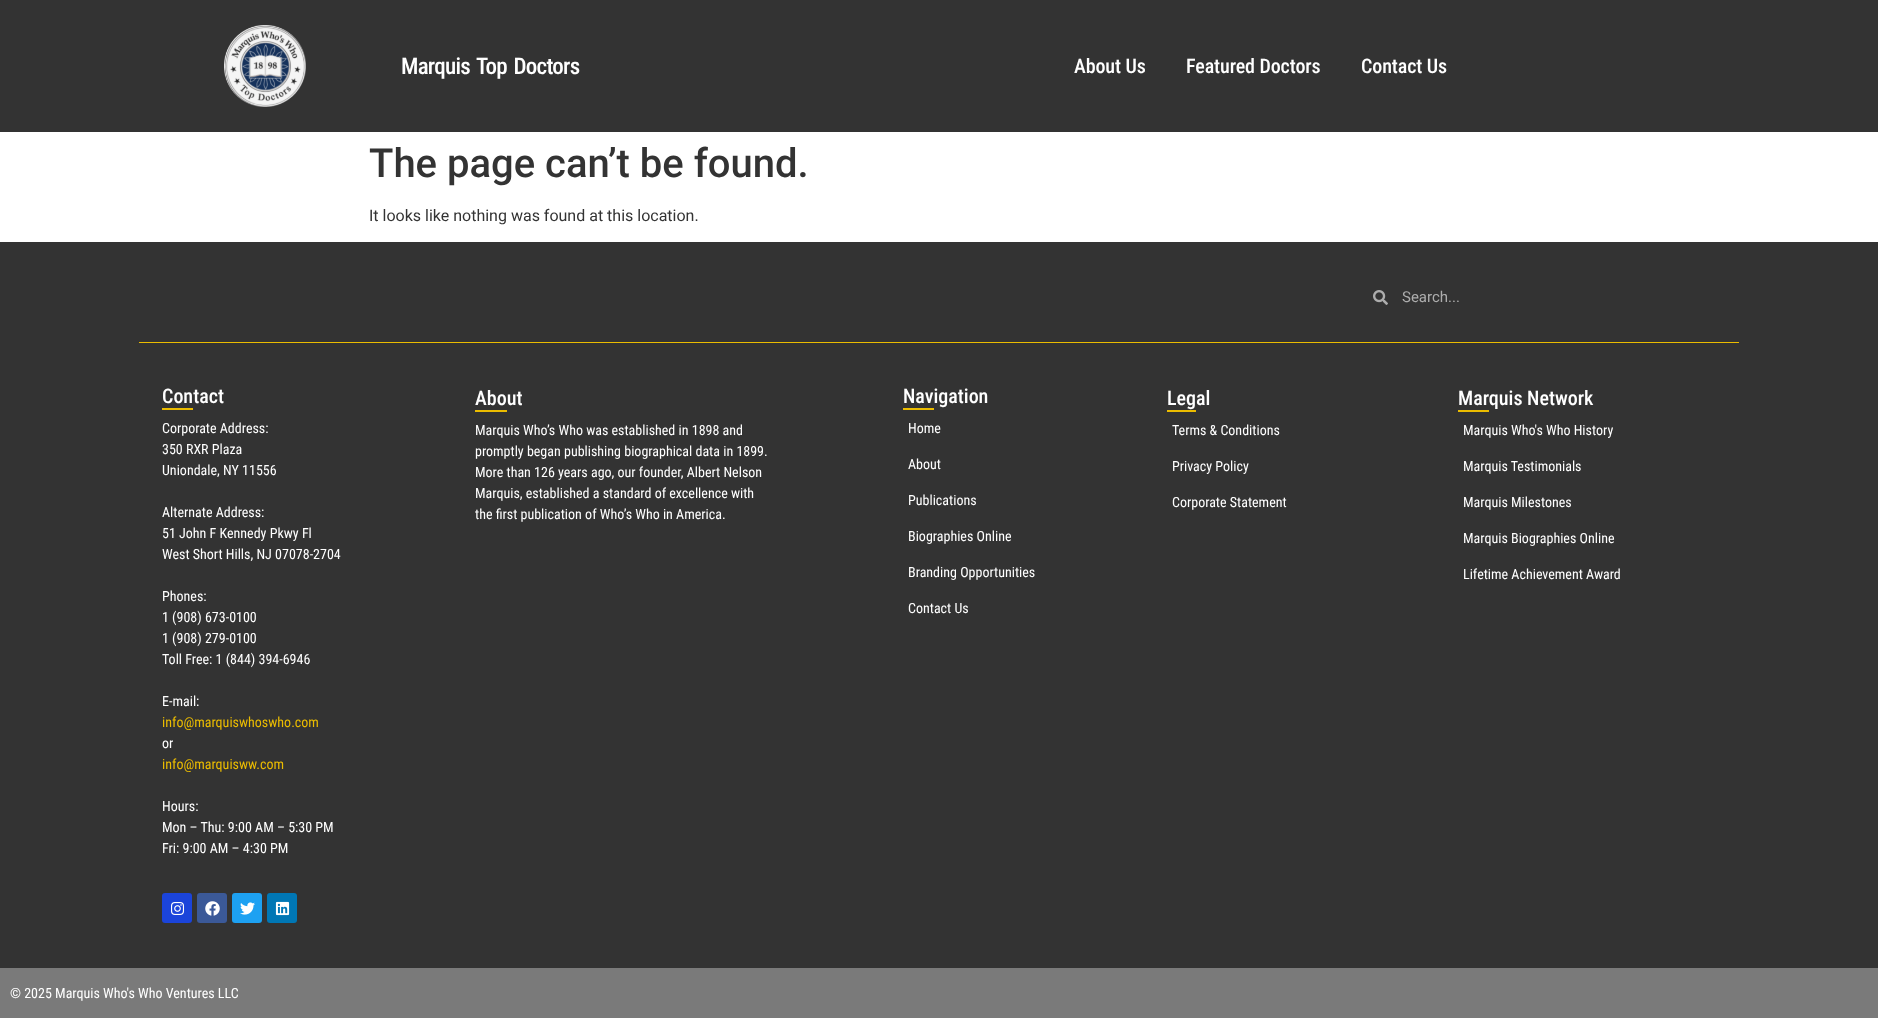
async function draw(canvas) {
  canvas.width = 1878
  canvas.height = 1029
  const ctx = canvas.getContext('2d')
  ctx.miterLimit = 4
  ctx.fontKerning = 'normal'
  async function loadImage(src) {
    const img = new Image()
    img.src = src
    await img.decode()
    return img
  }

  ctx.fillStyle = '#fff'
  ctx.fillRect(0, 0, 1878, 1029)
  ctx.fillStyle = '#333'
  ctx.fillRect(0, 0, 1878, 132)
  ctx.drawImage(await loadImage('image0.png'), 224, 25, 82, 82)
  ctx.letterSpacing = '-0.75px'
  ctx.wordSpacing = '2px'
  ctx.font = '500 23px Roboto Condensed'
  ctx.fillStyle = '#fff'
  ctx.fillText('Marquis Top Doctors', 401, 74)
  ctx.letterSpacing = '-0.1px'
  ctx.wordSpacing = '0px'
  ctx.font = '500 20px Roboto Condensed'
  ctx.fillText('About Us', 1074, 73)
  ctx.fillText('Featured Doctors', 1186, 73)
  ctx.fillText('Contact Us', 1361, 73)
  ctx.letterSpacing = '0px'
  ctx.font = '500 40px Roboto'
  ctx.fillStyle = '#333'
  ctx.fillText('The page can’t be found.', 369, 177)
  ctx.font = '16px Roboto'
  ctx.fillText('It looks like nothing was found at this location.', 369, 221)
  ctx.fillRect(0, 242, 1878, 726)
  ctx.drawImage(await loadImage('image1.png'), 1373, 290, 15, 15)
  ctx.font = '15px Roboto'
  ctx.fillStyle = '#adadad'
  ctx.fillText('Search...', 1402, 302)
  ctx.fillStyle = '#ebbc00'
  ctx.fillRect(139, 342, 1600, 1)
  ctx.font = '500 20px Roboto Condensed'
  ctx.fillStyle = '#fff'
  ctx.fillText('Contact', 162, 403)
  ctx.fillStyle = '#ebbc00'
  ctx.fillRect(162, 408, 31, 2)
  ctx.font = '14px Roboto Condensed'
  ctx.fillStyle = '#fff'
  ctx.fillText('Corporate Address:', 162, 433)
  ctx.fillText('350 RXR Plaza', 162, 454)
  ctx.fillText('Uniondale, NY 11556', 162, 475)
  ctx.fillText('Alternate Address:', 162, 517)
  ctx.fillText('51 John F Kennedy Pkwy Fl', 162, 538)
  ctx.fillText('West Short Hills, NJ 07078-2704', 162, 559)
  ctx.fillText('Phones:', 162, 601)
  ctx.fillText('1 (908) 673-0100', 162, 622)
  ctx.fillText('1 (908) 279-0100', 162, 643)
  ctx.fillText('Toll Free: 1 (844) 394-6946', 162, 664)
  ctx.fillText('E-mail:', 162, 706)
  ctx.fillStyle = '#ebbc00'
  ctx.fillText('info@marquiswhoswho.com', 162, 727)
  ctx.fillStyle = '#fff'
  ctx.fillText('or', 162, 748)
  ctx.fillStyle = '#ebbc00'
  ctx.fillText('info@marquisww.com', 162, 769)
  ctx.fillStyle = '#fff'
  ctx.fillText('Hours:', 162, 811)
  ctx.fillText('Mon – Thu: 9:00 AM – 5:30 PM', 162, 832)
  ctx.fillText('Fri: 9:00 AM – 4:30 PM', 162, 853)
  ctx.fillStyle = '#1b44da'
  ctx.beginPath()
  ctx.roundRect(162, 893, 30, 30, 3)
  ctx.fill()
  ctx.drawImage(await loadImage('image2.png'), 171, 902, 14, 13)
  ctx.fillStyle = '#3b5998'
  ctx.beginPath()
  ctx.roundRect(197, 893, 30, 30, 3)
  ctx.fill()
  ctx.drawImage(await loadImage('image3.png'), 205, 901, 15, 15)
  ctx.fillStyle = '#1da1f2'
  ctx.beginPath()
  ctx.roundRect(232, 893, 30, 30, 3)
  ctx.fill()
  ctx.drawImage(await loadImage('image4.png'), 240, 902, 15, 13)
  ctx.fillStyle = '#0077b5'
  ctx.beginPath()
  ctx.roundRect(267, 893, 30, 30, 3)
  ctx.fill()
  ctx.drawImage(await loadImage('image5.png'), 275, 901, 15, 15)
  ctx.font = '500 20px Roboto Condensed'
  ctx.fillStyle = '#fff'
  ctx.fillText('About', 475, 405)
  ctx.fillStyle = '#ebbc00'
  ctx.fillRect(475, 410, 32, 2)
  ctx.font = '14px Roboto Condensed'
  ctx.fillStyle = '#fff'
  ctx.fillText('Marquis Who’s Who was established in 1898 and', 475, 435)
  ctx.fillText('promptly began publishing biographical data in 1899.', 475, 456)
  ctx.fillText('More than 126 years ago, our founder, Albert Nelson', 475, 477)
  ctx.fillText('Marquis, established a standard of excellence with', 475, 498)
  ctx.fillText('the first publication of Who’s Who in America.', 475, 519)
  ctx.font = '500 20px Roboto Condensed'
  ctx.fillText('Navigation', 903, 403)
  ctx.fillStyle = '#ebbc00'
  ctx.fillRect(903, 408, 31, 2)
  ctx.font = '14px Roboto Condensed'
  ctx.fillStyle = '#fff'
  ctx.fillText('Home', 908, 433)
  ctx.fillText('About', 908, 469)
  ctx.fillText('Publications', 908, 505)
  ctx.fillText('Biographies Online', 908, 541)
  ctx.fillText('Branding Opportunities', 908, 577)
  ctx.fillText('Contact Us', 908, 613)
  ctx.font = '500 20px Roboto Condensed'
  ctx.fillText('Legal', 1167, 405)
  ctx.fillStyle = '#ebbc00'
  ctx.fillRect(1167, 410, 29, 2)
  ctx.font = '14px Roboto Condensed'
  ctx.fillStyle = '#fff'
  ctx.fillText('Terms & Conditions', 1172, 435)
  ctx.fillText('Privacy Policy', 1172, 471)
  ctx.fillText('Corporate Statement', 1172, 507)
  ctx.font = '500 20px Roboto Condensed'
  ctx.fillText('Marquis Network', 1458, 405)
  ctx.fillStyle = '#ebbc00'
  ctx.fillRect(1458, 410, 31, 2)
  ctx.font = '14px Roboto Condensed'
  ctx.fillStyle = '#fff'
  ctx.fillText('Marquis Who\'s Who History', 1463, 435)
  ctx.fillText('Marquis Testimonials', 1463, 471)
  ctx.fillText('Marquis Milestones', 1463, 507)
  ctx.fillText('Marquis Biographies Online', 1463, 543)
  ctx.fillText('Lifetime Achievement Award', 1463, 579)
  ctx.fillStyle = '#7a7a7a'
  ctx.fillRect(0, 968, 1878, 50)
  ctx.fillStyle = '#fff'
  ctx.fillText('© 2025 Marquis Who\'s Who Ventures LLC', 10, 998)
}

draw(document.querySelector('canvas'))
